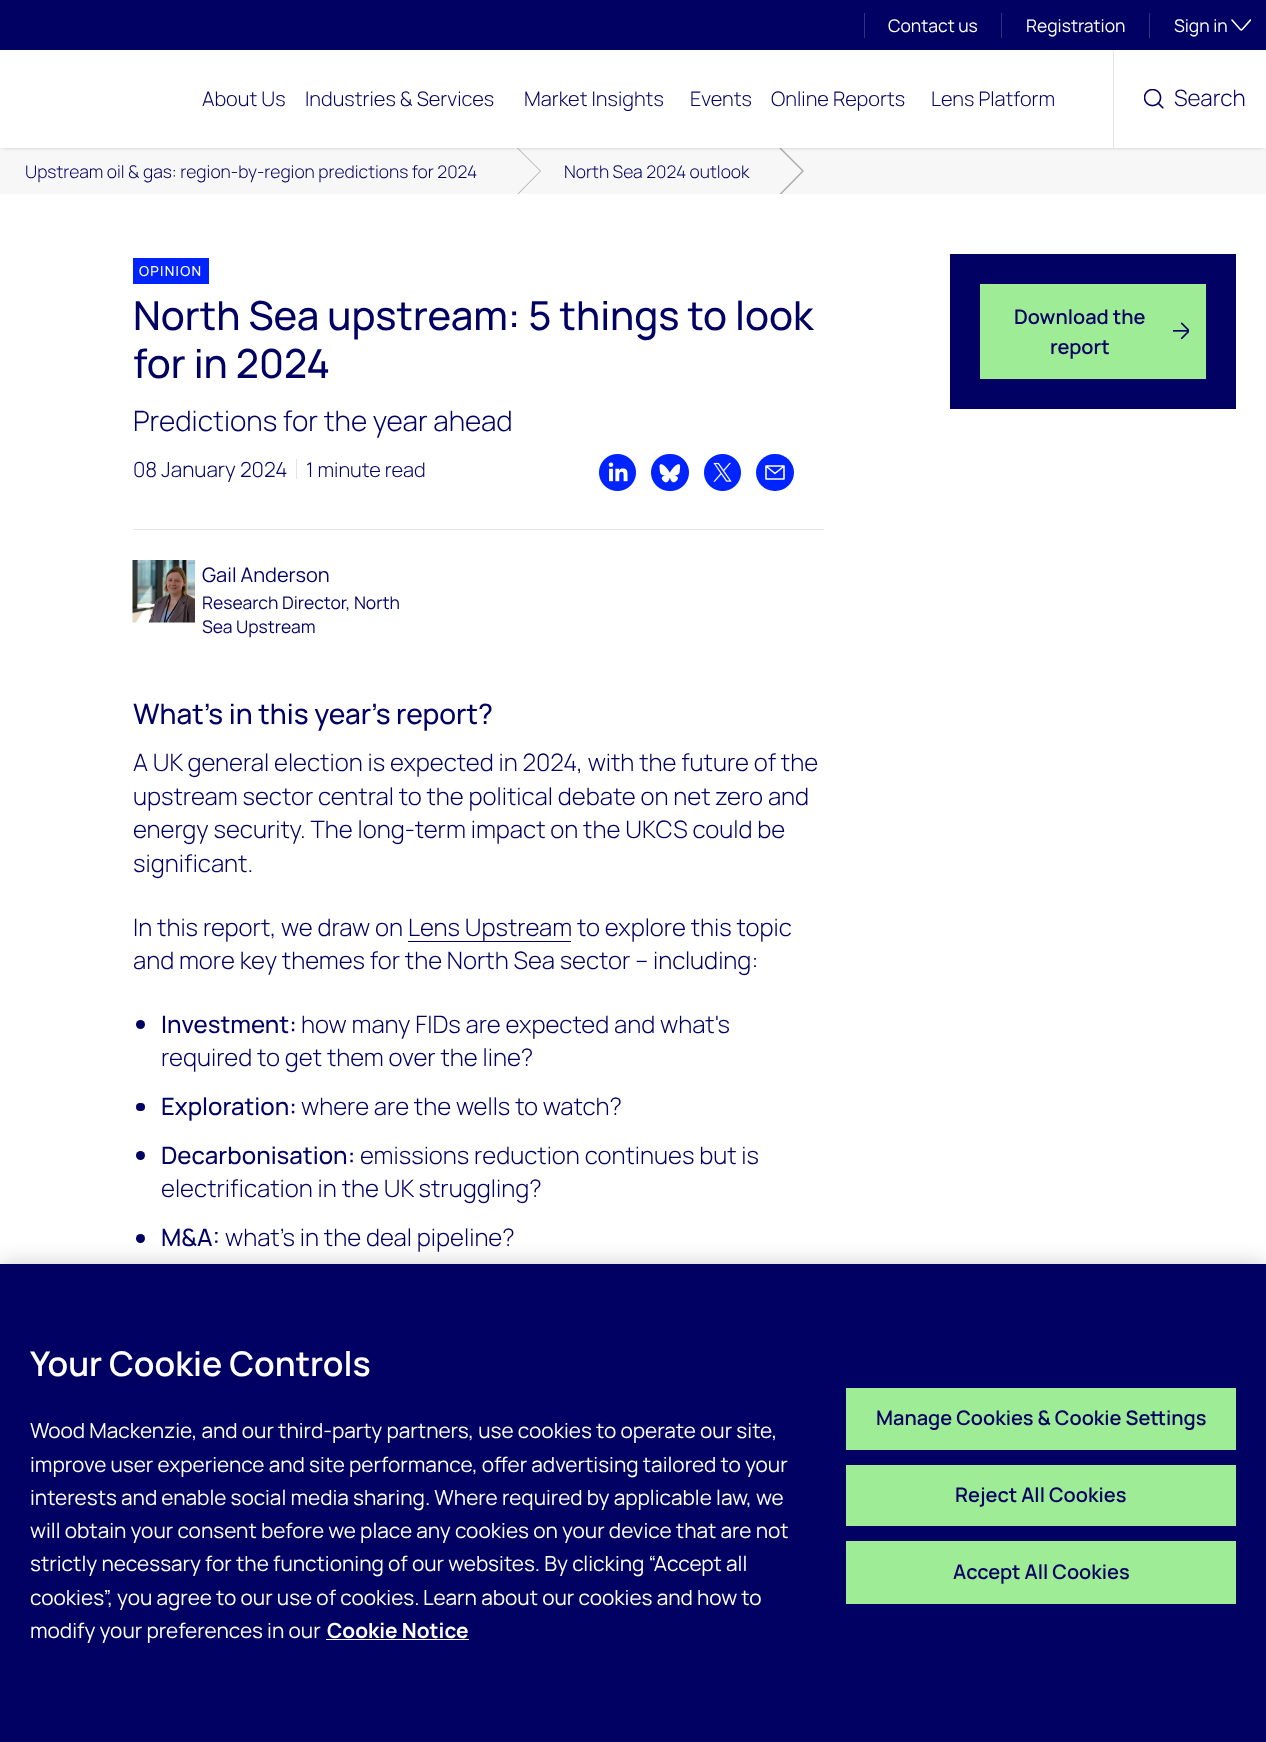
async function draw(canvas) {
  canvas.width = 1266
  canvas.height = 1742
  const ctx = canvas.getContext('2d')
  ctx.miterLimit = 4
  ctx.fontKerning = 'normal'
  async function loadImage(src) {
    const img = new Image()
    img.src = src
    await img.decode()
    return img
  }

  ctx.fillStyle = '#fff'
  ctx.fillRect(0, 0, 1266, 1742)
  ctx.fillStyle = '#f7f7f7'
  ctx.fillRect(0, 148, 1266, 46)
  ctx.save()
  ctx.beginPath()
  ctx.rect(0, 148, 1266, 46)
  ctx.clip()
  ctx.fillStyle = '#aaa'
  ctx.beginPath()
  ctx.moveTo(495, 218)
  ctx.lineTo(495, 125)
  ctx.lineTo(541, 171)
  ctx.closePath()
  ctx.fill()
  ctx.fillStyle = '#f7f7f7'
  ctx.beginPath()
  ctx.moveTo(494, 218)
  ctx.lineTo(494, 125)
  ctx.lineTo(540, 171)
  ctx.closePath()
  ctx.fill()
  ctx.fillStyle = '#aaa'
  ctx.beginPath()
  ctx.moveTo(758, 218)
  ctx.lineTo(758, 125)
  ctx.lineTo(804, 171)
  ctx.closePath()
  ctx.fill()
  ctx.fillStyle = '#f7f7f7'
  ctx.beginPath()
  ctx.moveTo(756, 218)
  ctx.lineTo(756, 125)
  ctx.lineTo(802, 171)
  ctx.closePath()
  ctx.fill()
  ctx.restore()
  ctx.fillStyle = '#00000080'
  ctx.filter = 'blur(2.5px)'
  ctx.beginPath()
  ctx.rect(3, 54, 1261, 92)
  ctx.fill()
  ctx.filter = 'none'
  ctx.fillStyle = '#010063'
  ctx.fillRect(0, 0, 1266, 50)
  ctx.fillStyle = '#323180'
  ctx.fillRect(864, 13, 1, 25)
  ctx.font = '17.5px Manrope'
  ctx.fillStyle = '#fff'
  ctx.fillText('Contact us', 888, 32)
  ctx.fillStyle = '#323180'
  ctx.fillRect(1001, 13, 1, 25)
  ctx.fillStyle = '#fff'
  ctx.fillText('Registration', 1026, 32)
  ctx.save()
  ctx.beginPath()
  ctx.moveTo(1231, 15)
  ctx.lineTo(1251, 15)
  ctx.lineTo(1251, 35)
  ctx.lineTo(1231, 35)
  ctx.closePath()
  ctx.clip()
  ctx.beginPath()
  ctx.moveTo(1232, 20)
  ctx.lineTo(1239.5, 28.5)
  ctx.bezierCurveTo(1241.5, 30.5, 1241, 30.5, 1243, 28.5)
  ctx.lineTo(1250.5, 20)
  ctx.strokeStyle = '#fff'
  ctx.lineWidth = 1.6
  ctx.lineCap = 'round'
  ctx.lineJoin = 'round'
  ctx.stroke()
  ctx.restore()
  ctx.fillStyle = '#323180'
  ctx.fillRect(1149, 13, 1, 25)
  ctx.fillStyle = '#fff'
  ctx.fillText('Sign in', 1174, 32)
  ctx.fillRect(0, 50, 1266, 98)
  ctx.font = '300 20px Manrope'
  ctx.fillStyle = '#010063'
  ctx.fillText('About Us', 202, 106)
  ctx.fillText('Industries & Services', 305, 106)
  ctx.fillText('Market Insights', 524, 106)
  ctx.fillText('Events', 690, 106)
  ctx.fillText('Online Reports', 771, 106)
  ctx.fillText('Lens Platform', 931, 106)
  ctx.drawImage(await loadImage('image0.png'), 1144, 89, 20, 20)
  ctx.fillStyle = '#e4e4e4'
  ctx.fillRect(1113, 50, 1, 98)
  ctx.font = '300 22.5px Manrope'
  ctx.fillStyle = '#010063'
  ctx.fillText('Search', 1174, 106)
  ctx.font = '300 17.5px Manrope'
  ctx.fillText('Upstream oil & gas: region-by-region predictions for 2024', 25, 178)
  ctx.fillText('North Sea 2024 outlook', 564, 178)
  ctx.fillStyle = '#0024ff'
  ctx.fillRect(133, 258, 76, 26)
  ctx.letterSpacing = '1.25px'
  ctx.font = '500 13.75px Manrope'
  ctx.fillStyle = '#fff'
  ctx.fillText('OPINION', 139, 276)
  ctx.letterSpacing = '0px'
  ctx.font = '500 40px Manrope'
  ctx.fillStyle = '#010063'
  ctx.fillText('North Sea upstream: 5 things to look', 133, 330)
  ctx.fillText('for in 2024', 133, 378)
  ctx.font = '300 28px Manrope'
  ctx.fillText('Predictions for the year ahead', 133, 431)
  ctx.font = '300 20.8px Manrope'
  ctx.fillText('08 January 2024', 133, 477)
  ctx.fillStyle = '#e4e4e4'
  ctx.fillRect(296, 459, 1, 20)
  ctx.font = '300 20px Manrope'
  ctx.fillStyle = '#010063'
  ctx.fillText('1 minute read', 306, 477)
  ctx.drawImage(await loadImage('image1.png'), 599, 454, 37, 37)
  ctx.drawImage(await loadImage('image2.png'), 651, 454, 38, 37)
  ctx.drawImage(await loadImage('image3.png'), 704, 454, 37, 37)
  ctx.fillStyle = '#0024ff'
  ctx.beginPath()
  ctx.roundRect(756, 454, 38, 37, 18.5)
  ctx.fill()
  ctx.beginPath()
  ctx.moveTo(766, 466)
  ctx.lineTo(784, 466)
  ctx.lineTo(784, 479)
  ctx.lineTo(766, 479)
  ctx.closePath()
  ctx.moveTo(783.5, 466.5)
  ctx.lineTo(775, 473.5)
  ctx.lineTo(766.5, 466.5)
  ctx.strokeStyle = '#fff'
  ctx.lineWidth = 1.6
  ctx.lineCap = 'round'
  ctx.lineJoin = 'round'
  ctx.stroke()
  ctx.fillStyle = '#e4e4e4'
  ctx.fillRect(133, 529, 691, 1)
  ctx.drawImage(await loadImage('image4.png'), 132, 560, 63, 63)
  ctx.font = '20px Manrope'
  ctx.fillStyle = '#010063'
  ctx.fillText('Gail Anderson', 202, 582)
  ctx.font = '17.5px Manrope'
  ctx.fillText('Research Director, North', 202, 609)
  ctx.fillText('Sea Upstream', 202, 633)
  ctx.fillRect(950, 254, 286, 155)
  ctx.fillStyle = '#9eed96'
  ctx.fillRect(980, 284, 226, 95)
  ctx.font = '600 20px Manrope'
  ctx.fillStyle = '#010063'
  ctx.fillText('Download the', 1014, 324)
  ctx.fillText('report', 1050, 354)
  ctx.drawImage(await loadImage('image5.png'), 1173, 322, 16, 18)
  ctx.font = '500 28px Manrope'
  ctx.fillText('What\'s in this year\'s report?', 133, 724)
  ctx.font = '300 24px Manrope'
  ctx.fillText('A UK general election is expected in 2024, with the future of the', 133, 771)
  ctx.fillText('upstream sector central to the political debate on net zero and', 133, 805)
  ctx.fillText('energy security. The long-term impact on the UKCS could be', 133, 838)
  ctx.fillText('significant.', 133, 872)
  ctx.fillText('In this report, we draw on', 133, 936)
  ctx.fillRect(408, 941, 163, 1)
  ctx.fillText('Lens Upstream to explore this topic', 408, 936)
  ctx.fillText('and more key themes for the North Sea sector – including:', 133, 969)
  ctx.beginPath()
  ctx.arc(140.5, 1024.5, 4.5, 0, 2 * Math.PI)
  ctx.fill()
  ctx.font = '500 24px Manrope'
  ctx.fillText('Investment:', 161, 1033)
  ctx.font = '300 24px Manrope'
  ctx.fillText('how many FIDs are expected and what\'s', 301, 1033)
  ctx.fillText('required to get them over the line?', 161, 1066)
  ctx.beginPath()
  ctx.roundRect(136, 1103, 9, 8, 4)
  ctx.fill()
  ctx.font = '500 24px Manrope'
  ctx.fillText('Exploration:', 161, 1115)
  ctx.font = '300 24px Manrope'
  ctx.fillText('where are the wells to watch?', 301, 1115)
  ctx.beginPath()
  ctx.arc(140.5, 1155.5, 4.5, 0, 2 * Math.PI)
  ctx.fill()
  ctx.font = '500 24px Manrope'
  ctx.fillText('Decarbonisation:', 161, 1164)
  ctx.font = '300 24px Manrope'
  ctx.fillText('emissions reduction continues but is', 360, 1164)
  ctx.fillText('electrification in the UK struggling?', 161, 1197)
  ctx.beginPath()
  ctx.arc(140.5, 1238.5, 4.5, 0, 2 * Math.PI)
  ctx.fill()
  ctx.font = '500 24px Manrope'
  ctx.fillText('M&A:', 161, 1246)
  ctx.font = '300 24px Manrope'
  ctx.fillText('what\'s in the deal pipeline?', 225, 1246)
  ctx.fillStyle = '#00000033'
  ctx.filter = 'blur(11px)'
  ctx.beginPath()
  ctx.rect(0, 1264, 1266, 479)
  ctx.fill()
  ctx.filter = 'none'
  ctx.fillStyle = '#010063'
  ctx.fillRect(0, 1264, 1266, 478)
  ctx.font = '600 34px Manrope'
  ctx.fillStyle = '#fff'
  ctx.fillText('Your Cookie Controls', 30, 1376)
  ctx.font = '20.8px Manrope'
  ctx.fillText('Wood Mackenzie, and our third-party partners, use cookies to operate our site,', 30, 1438)
  ctx.fillText('improve user experience and site performance, offer advertising tailored to your', 30, 1472)
  ctx.fillText('interests and enable social media sharing. Where required by applicable law, we', 30, 1505)
  ctx.fillText('will obtain your consent before we place any cookies on your device that are not', 30, 1538)
  ctx.fillText('strictly necessary for the functioning of our websites. By clicking “Accept all', 30, 1571)
  ctx.fillText('cookies”, you agree to our use of cookies.', 30, 1605)
  ctx.fillText('Learn about our cookies and how to', 423, 1605)
  ctx.fillText('modify your preferences in our', 30, 1638)
  ctx.font = 'bold 20.8px Manrope'
  ctx.fillText('Cookie Notice', 327, 1638)
  ctx.fillRect(326, 1639, 143, 1)
  ctx.fillStyle = '#9eed96'
  ctx.fillRect(846, 1388, 390, 62)
  ctx.font = '600 20px Manrope'
  ctx.fillStyle = '#010063'
  ctx.fillText('Manage Cookies & Cookie Settings', 876, 1425)
  ctx.fillStyle = '#9eed96'
  ctx.fillRect(846, 1465, 390, 61)
  ctx.fillStyle = '#010063'
  ctx.fillText('Reject All Cookies', 955, 1502)
  ctx.fillStyle = '#9eed96'
  ctx.fillRect(846, 1541, 390, 63)
  ctx.fillStyle = '#010063'
  ctx.fillText('Accept All Cookies', 953, 1579)
}

draw(document.querySelector('canvas'))
